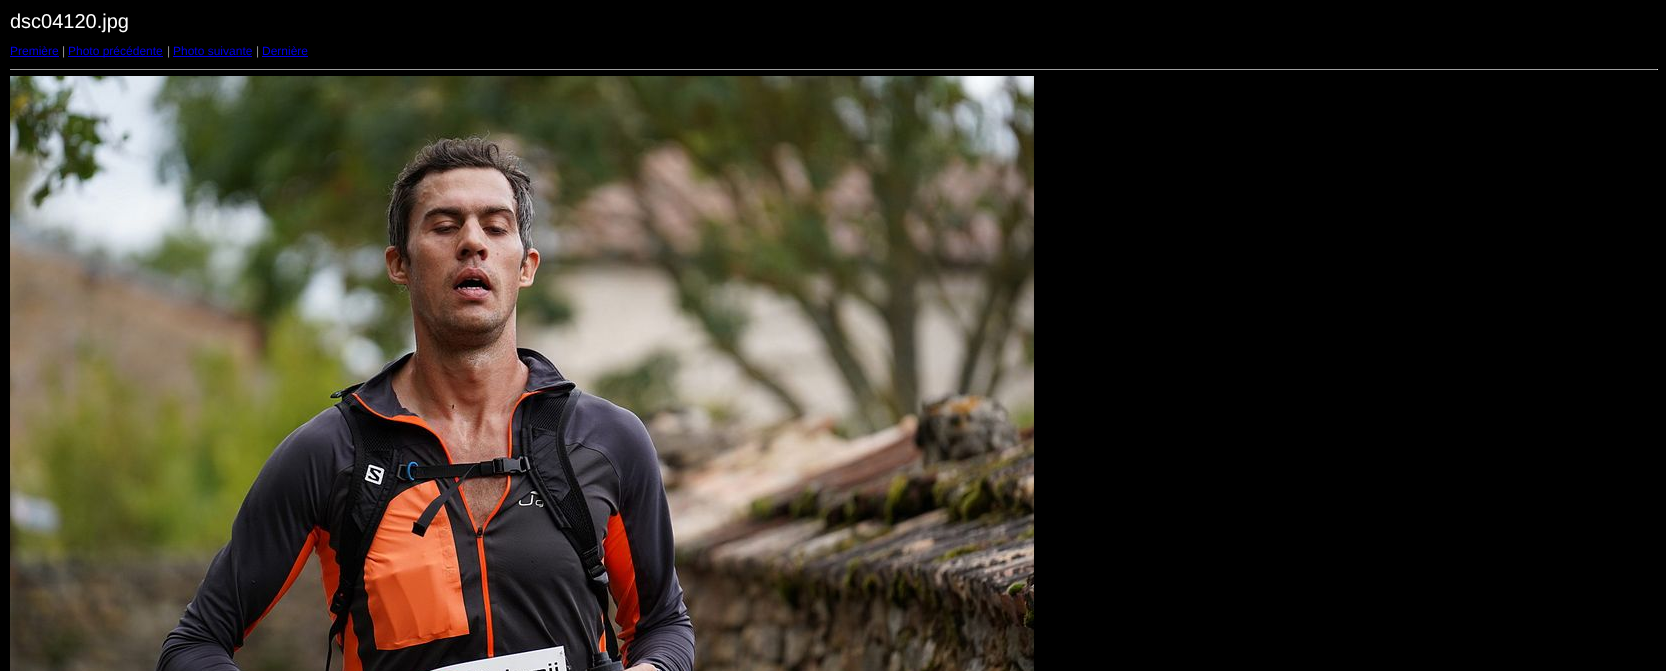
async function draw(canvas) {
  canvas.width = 1666
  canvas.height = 671
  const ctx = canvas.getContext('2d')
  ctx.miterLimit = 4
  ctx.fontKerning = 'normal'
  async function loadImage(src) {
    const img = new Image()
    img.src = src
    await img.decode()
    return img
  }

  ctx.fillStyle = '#000'
  ctx.fillRect(0, 0, 1666, 671)
  ctx.font = '20px Liberation Sans'
  ctx.fillStyle = '#fff'
  ctx.fillText('dsc04120.jpg', 10, 28)
  ctx.font = '12px Liberation Sans'
  ctx.fillStyle = '#00e'
  ctx.fillText('Première', 10, 55)
  ctx.fillRect(10, 56, 49, 1)
  ctx.fillStyle = '#999'
  ctx.fillText('|', 62, 55)
  ctx.fillStyle = '#00e'
  ctx.fillRect(68, 56, 95, 1)
  ctx.fillText('Photo précédente', 68, 55)
  ctx.fillStyle = '#999'
  ctx.fillText('|', 167, 55)
  ctx.fillStyle = '#00e'
  ctx.fillText('Photo suivante', 173, 55)
  ctx.fillRect(173, 56, 79, 1)
  ctx.fillStyle = '#999'
  ctx.fillText('|', 256, 55)
  ctx.fillStyle = '#00e'
  ctx.fillText('Dernière', 262, 55)
  ctx.fillRect(262, 56, 46, 1)
  ctx.fillStyle = '#9f9f9f'
  ctx.fillRect(10, 69, 1648, 1)
  ctx.fillStyle = '#eee'
  ctx.fillRect(1657, 69, 1, 1)
  ctx.drawImage(await loadImage('image0.png'), 10, 76, 1024, 595)
}

draw(document.querySelector('canvas'))
